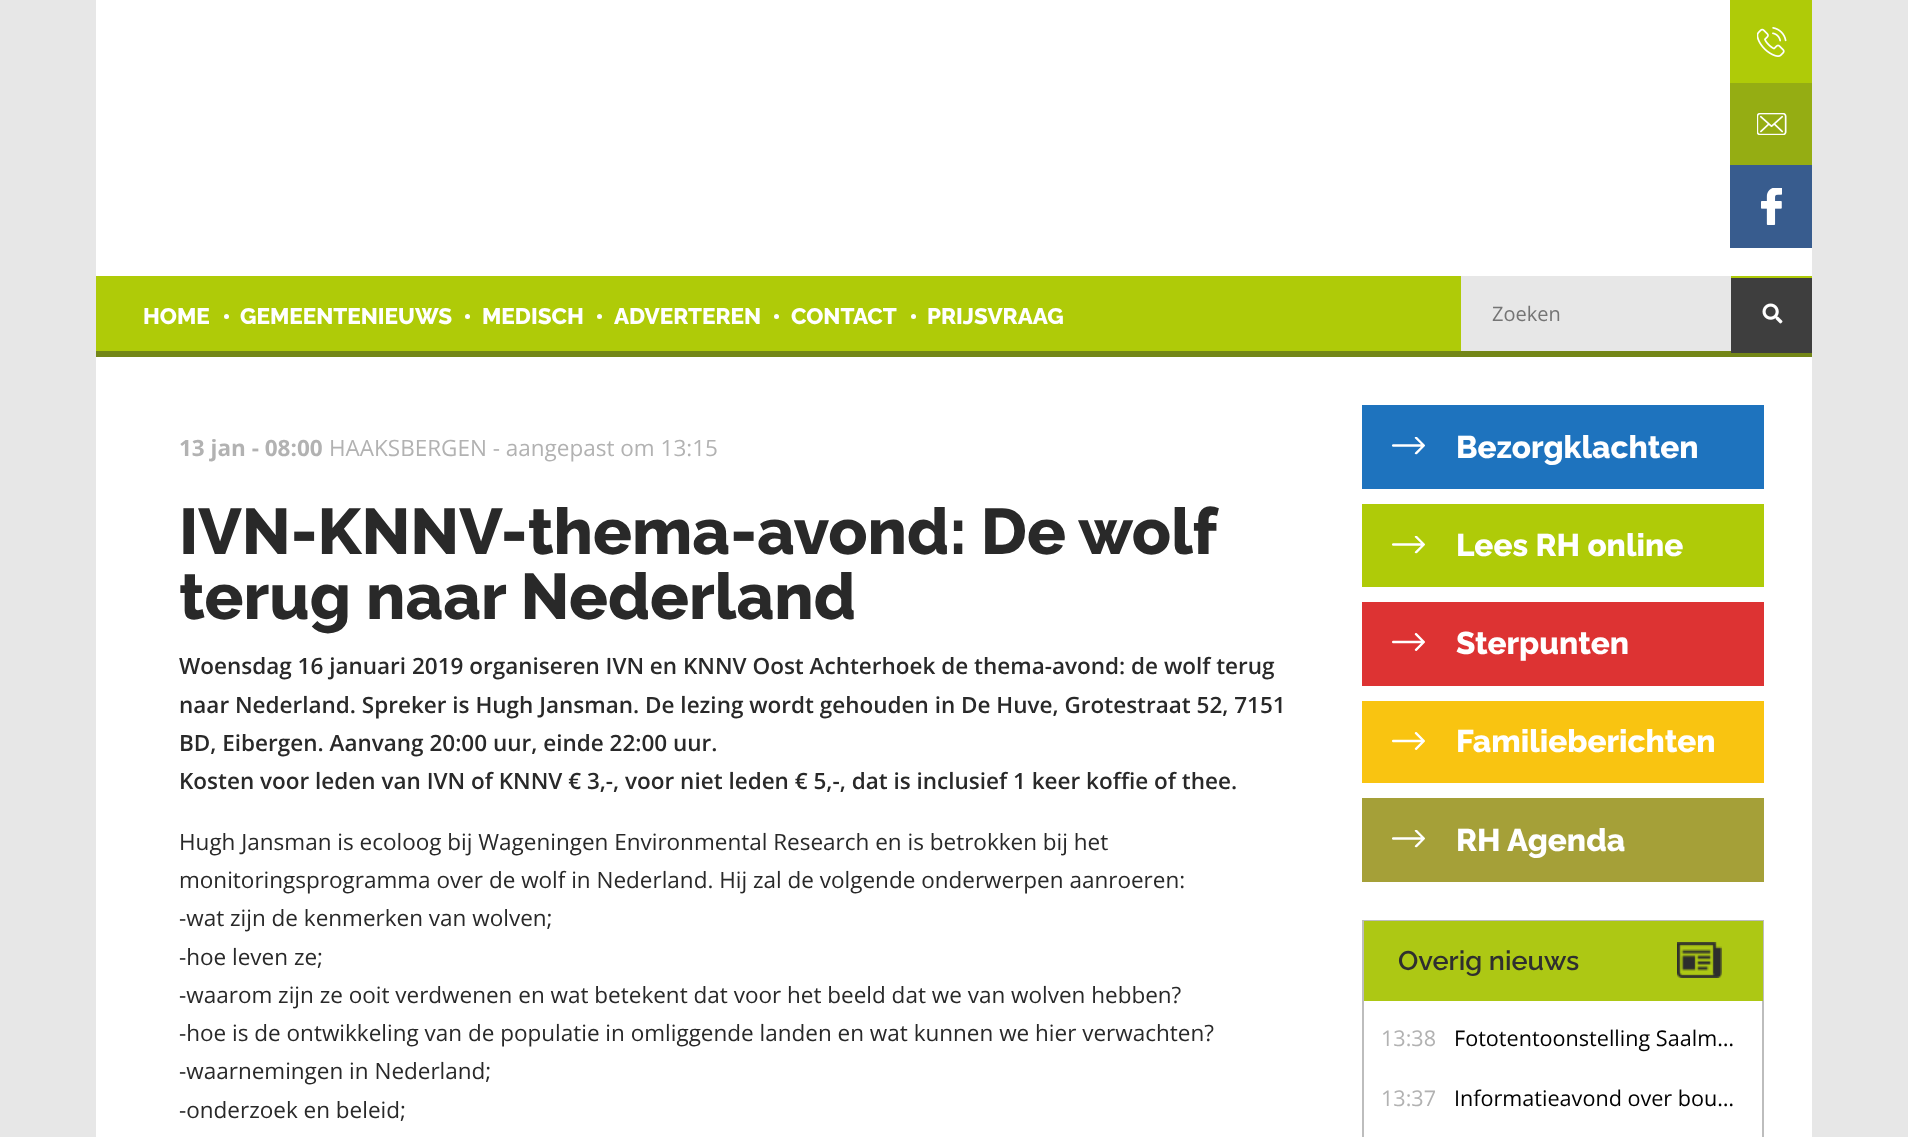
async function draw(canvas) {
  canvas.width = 1908
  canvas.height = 1137
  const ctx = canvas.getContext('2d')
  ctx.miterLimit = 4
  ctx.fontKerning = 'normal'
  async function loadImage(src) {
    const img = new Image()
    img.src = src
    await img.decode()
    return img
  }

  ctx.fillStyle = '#e7e7e7'
  ctx.fillRect(0, 0, 1908, 1137)
  ctx.fillStyle = '#fff'
  ctx.fillRect(96, 0, 1716, 276)
  ctx.fillStyle = '#afcb08'
  ctx.fillRect(1730, 0, 82, 83)
  ctx.drawImage(await loadImage('image0.png'), 1757, 27, 30, 30)
  ctx.fillStyle = '#95ad13'
  ctx.fillRect(1730, 83, 82, 82)
  ctx.drawImage(await loadImage('image1.png'), 1757, 113, 30, 22)
  ctx.fillStyle = '#385c8e'
  ctx.fillRect(1730, 165, 82, 83)
  ctx.drawImage(await loadImage('image2.png'), 1761, 188, 21, 37)
  ctx.fillStyle = '#afcb08'
  ctx.fillRect(96, 276, 1716, 75)
  ctx.fillStyle = '#738617'
  ctx.fillRect(96, 351, 1716, 6)
  ctx.font = '800 22.5px Raleway'
  ctx.fillStyle = '#fff'
  ctx.fillText('HOME', 143, 324)
  ctx.beginPath()
  ctx.arc(226.5, 316.5, 2.5, 0, 2 * Math.PI)
  ctx.fill()
  ctx.fillText('GEMEENTENIEUWS', 240, 324)
  ctx.beginPath()
  ctx.arc(467.5, 316.5, 2.5, 0, 2 * Math.PI)
  ctx.fill()
  ctx.fillText('MEDISCH', 482, 324)
  ctx.beginPath()
  ctx.arc(599.5, 316.5, 2.5, 0, 2 * Math.PI)
  ctx.fill()
  ctx.fillText('ADVERTEREN', 614, 324)
  ctx.beginPath()
  ctx.arc(776.5, 316.5, 2.5, 0, 2 * Math.PI)
  ctx.fill()
  ctx.fillText('CONTACT', 791, 324)
  ctx.beginPath()
  ctx.arc(913.5, 316.5, 2.5, 0, 2 * Math.PI)
  ctx.fill()
  ctx.fillText('PRIJSVRAAG', 927, 324)
  ctx.fillStyle = '#e7e7e7'
  ctx.fillRect(1461, 276, 270, 75)
  ctx.font = '20px Open Sans'
  ctx.fillStyle = '#757575'
  ctx.fillText('Zoeken', 1492, 321)
  ctx.fillStyle = '#3e3e3e'
  ctx.fillRect(1731, 278, 81, 75)
  ctx.drawImage(await loadImage('image3.png'), 1762, 303, 21, 21)
  ctx.fillStyle = '#fff'
  ctx.fillRect(96, 357, 1716, 780)
  ctx.font = 'bold 22.5px Open Sans'
  ctx.fillStyle = '#b2b2b2'
  ctx.fillText('13 jan - 08:00', 179, 456)
  ctx.font = '22.5px Open Sans'
  ctx.fillText('HAAKSBERGEN - aangepast om 13:15', 329, 456)
  ctx.wordSpacing = '-1px'
  ctx.font = '800 64.5px Raleway'
  ctx.fillStyle = '#292929'
  ctx.fillText('IVN-KNNV-thema-avond: De wolf', 179, 554)
  ctx.wordSpacing = '0px'
  ctx.fillText('terug naar Nederland', 179, 619)
  ctx.font = '600 22.5px Open Sans'
  ctx.fillText('Woensdag 16 januari 2019 organiseren IVN en KNNV Oost Achterhoek de thema-avond: de wolf terug', 179, 674)
  ctx.fillText('naar Nederland. Spreker is Hugh Jansman. De lezing wordt gehouden in De Huve, Grotestraat 52, 7151', 179, 713)
  ctx.fillText('BD, Eibergen. Aanvang 20:00 uur, einde 22:00 uur.', 179, 751)
  ctx.fillText('Kosten voor leden van IVN of KNNV € 3,-, voor niet leden € 5,-, dat is inclusief 1 keer koffie of thee.', 179, 789)
  ctx.font = '22.5px Open Sans'
  ctx.fillText('Hugh Jansman is ecoloog bij Wageningen Environmental Research en is betrokken bij het', 179, 850)
  ctx.fillText('monitoringsprogramma over de wolf in Nederland. Hij zal de volgende onderwerpen aanroeren:', 179, 888)
  ctx.fillText('-wat zijn de kenmerken van wolven;', 179, 926)
  ctx.fillText('-hoe leven ze;', 179, 965)
  ctx.fillText('-waarom zijn ze ooit verdwenen en wat betekent dat voor het beeld dat we van wolven hebben?', 179, 1003)
  ctx.fillText('-hoe is de ontwikkeling van de populatie in omliggende landen en wat kunnen we hier verwachten?', 179, 1041)
  ctx.fillText('-waarnemingen in Nederland;', 179, 1079)
  ctx.fillText('-onderzoek en beleid;', 179, 1118)
  ctx.fillStyle = '#1e73be'
  ctx.fillRect(1362, 405, 402, 84)
  ctx.drawImage(await loadImage('image4.png'), 1392, 437, 33, 18)
  ctx.font = '800 31.5px Raleway'
  ctx.fillStyle = '#fff'
  ctx.fillText('Bezorgklachten', 1456, 458)
  ctx.fillStyle = '#afcb08'
  ctx.fillRect(1362, 504, 402, 83)
  ctx.drawImage(await loadImage('image5.png'), 1392, 536, 33, 18)
  ctx.fillStyle = '#fff'
  ctx.fillText('Lees RH online', 1456, 556)
  ctx.fillStyle = '#d33'
  ctx.fillRect(1362, 602, 402, 84)
  ctx.drawImage(await loadImage('image6.png'), 1392, 633, 33, 18)
  ctx.fillStyle = '#fff'
  ctx.fillText('Sterpunten', 1456, 654)
  ctx.fillStyle = '#f9c411'
  ctx.fillRect(1362, 701, 402, 82)
  ctx.drawImage(await loadImage('image7.png'), 1392, 732, 33, 18)
  ctx.fillStyle = '#fff'
  ctx.fillText('Familieberichten', 1456, 752)
  ctx.fillStyle = '#a5a038'
  ctx.fillRect(1362, 798, 402, 84)
  ctx.drawImage(await loadImage('image8.png'), 1392, 830, 33, 18)
  ctx.fillStyle = '#fff'
  ctx.fillText('RH Agenda', 1456, 851)
  ctx.strokeStyle = '#bdbdbd'
  ctx.lineWidth = 2
  ctx.strokeRect(1363, 921, 400, 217)
  ctx.fillStyle = '#adc814'
  ctx.fillRect(1364, 921, 399, 80)
  ctx.drawImage(await loadImage('image9.png'), 1677, 942, 45, 36)
  ctx.font = '600 27px Raleway'
  ctx.fillStyle = '#2f2f2f'
  ctx.fillText('Overig nieuws', 1398, 970)
  ctx.font = '21.6px Open Sans'
  ctx.fillStyle = '#b2b2b2'
  ctx.fillText('13:38', 1381, 1046)
  ctx.fillStyle = '#010101'
  ctx.fillText('Fototentoonstelling Saalm…', 1454, 1046)
  ctx.fillStyle = '#b2b2b2'
  ctx.fillText('13:37', 1381, 1106)
  ctx.fillStyle = '#010101'
  ctx.fillText('Informatieavond over bou…', 1454, 1106)
}

draw(document.querySelector('canvas'))
